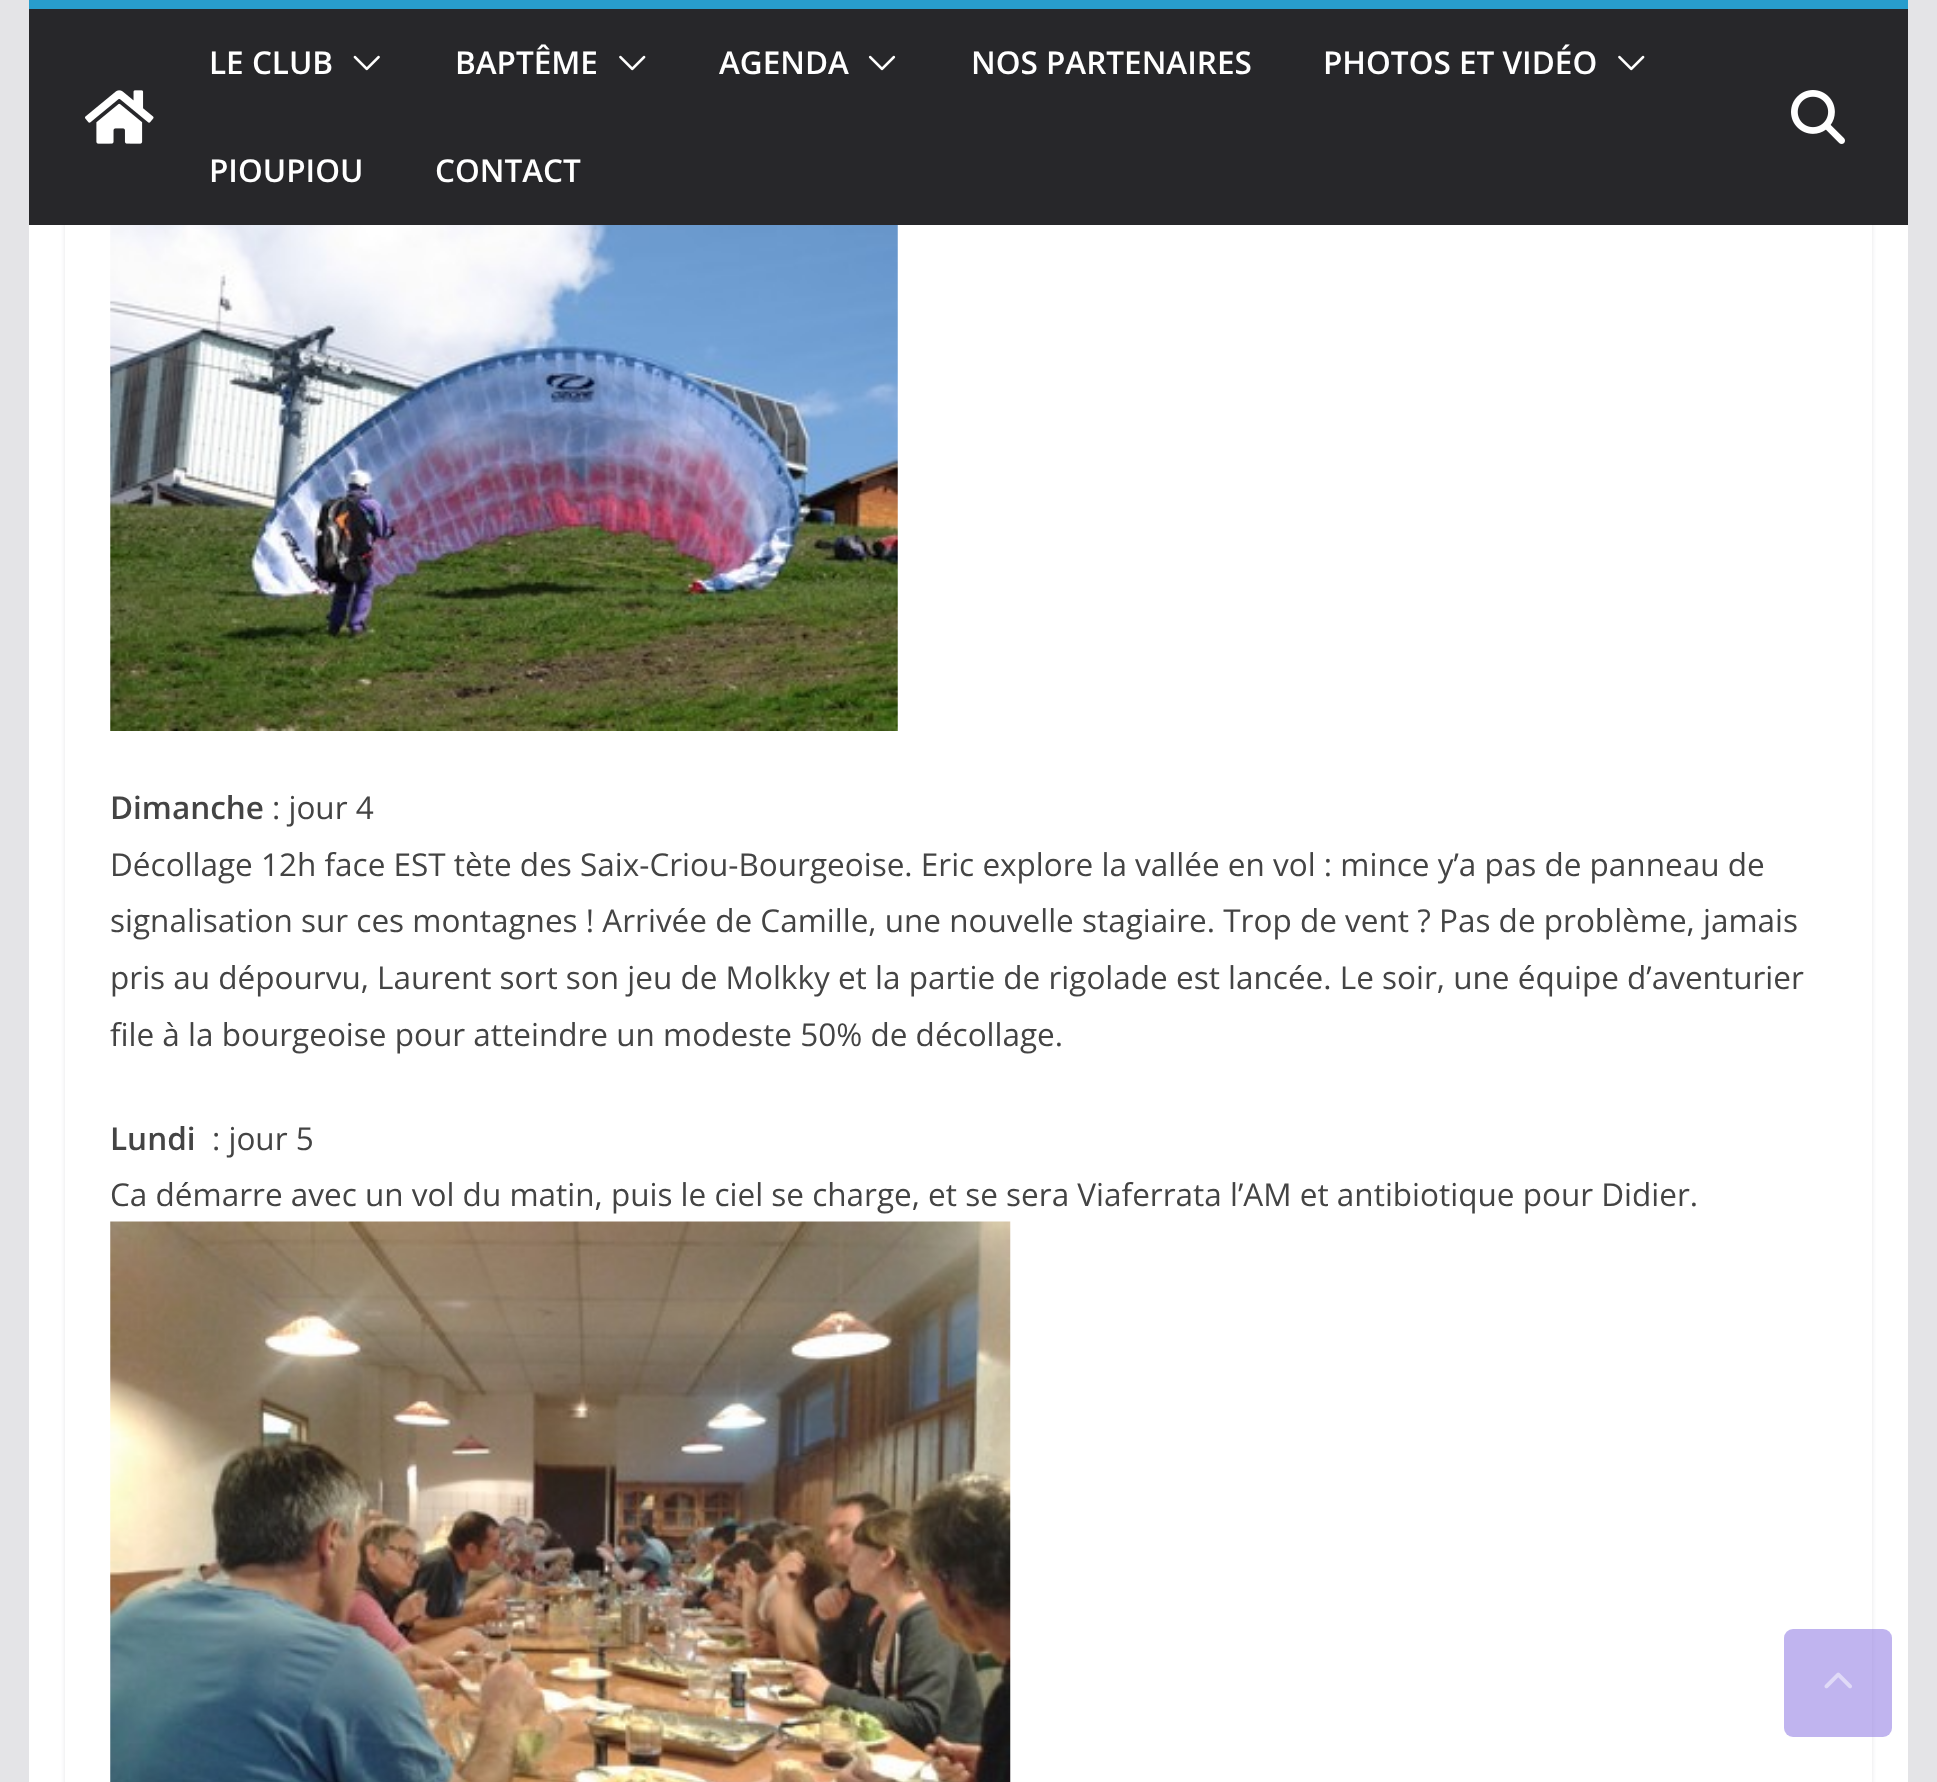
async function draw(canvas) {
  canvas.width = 1937
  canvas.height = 1782
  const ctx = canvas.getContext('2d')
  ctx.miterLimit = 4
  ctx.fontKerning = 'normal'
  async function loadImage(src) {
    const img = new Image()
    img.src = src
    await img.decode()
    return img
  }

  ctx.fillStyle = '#e4e4e7'
  ctx.fillRect(0, 0, 1937, 1782)
  ctx.fillStyle = '#fff'
  ctx.fillRect(29, 225, 1879, 1557)
  ctx.save()
  ctx.beginPath()
  ctx.moveTo(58, 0)
  ctx.lineTo(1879, 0)
  ctx.lineTo(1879, 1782)
  ctx.lineTo(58, 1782)
  ctx.closePath()
  ctx.moveTo(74, -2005)
  ctx.lineTo(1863, -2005)
  ctx.bezierCurveTo(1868, -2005, 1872, -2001, 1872, -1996)
  ctx.lineTo(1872, 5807)
  ctx.bezierCurveTo(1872, 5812, 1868, 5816, 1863, 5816)
  ctx.lineTo(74, 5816)
  ctx.bezierCurveTo(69, 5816, 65, 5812, 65, 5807)
  ctx.lineTo(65, -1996)
  ctx.bezierCurveTo(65, -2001, 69, -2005, 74, -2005)
  ctx.closePath()
  ctx.clip('evenodd')
  ctx.fillStyle = '#e4e4e7'
  ctx.filter = 'blur(2px)'
  ctx.beginPath()
  ctx.roundRect(65, -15, 1807, 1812, 9)
  ctx.fill()
  ctx.filter = 'none'
  ctx.restore()
  ctx.fillStyle = '#27272a'
  ctx.fillRect(29, 9, 1879, 216)
  ctx.fillStyle = '#289dcc'
  ctx.fillRect(29, 0, 1879, 9)
  ctx.drawImage(await loadImage('image0.png'), 85, 90, 69, 54)
  ctx.font = '600 31.5px Open Sans'
  ctx.fillStyle = '#fff'
  ctx.fillText('LE CLUB', 209, 74)
  ctx.drawImage(await loadImage('image1.png'), 353, 55, 27, 16)
  ctx.fillText('BAPTÊME', 455, 74)
  ctx.drawImage(await loadImage('image2.png'), 619, 55, 27, 16)
  ctx.fillText('AGENDA', 719, 74)
  ctx.drawImage(await loadImage('image3.png'), 868, 55, 28, 16)
  ctx.fillText('NOS PARTENAIRES', 971, 74)
  ctx.fillText('PHOTOS ET VIDÉO', 1323, 74)
  ctx.drawImage(await loadImage('image2.png'), 1618, 55, 27, 16)
  ctx.fillText('PIOUPIOU', 209, 182)
  ctx.fillText('CONTACT', 435, 182)
  ctx.drawImage(await loadImage('image4.png'), 1791, 90, 54, 54)
  ctx.drawImage(await loadImage('image5.png'), 110, 225, 788, 506)
  ctx.fillStyle = '#444'
  ctx.fillText('Dimanche', 110, 819)
  ctx.font = '31.5px Open Sans'
  ctx.fillText(': jour 4', 272, 819)
  ctx.fillText('Décollage 12h face EST tète des Saix-Criou-Bourgeoise. Eric explore la vallée en vol : mince y’a pas de panneau de', 110, 876)
  ctx.fillText('signalisation sur ces montagnes ! Arrivée de Camille, une nouvelle stagiaire. Trop de vent ? Pas de problème, jamais', 110, 932)
  ctx.fillText('pris au dépourvu, Laurent sort son jeu de Molkky et la partie de rigolade est lancée. Le soir, une équipe d’aventurier', 110, 989)
  ctx.fillText('file à la bourgeoise pour atteindre un modeste 50% de décollage.', 110, 1046)
  ctx.font = '600 31.5px Open Sans'
  ctx.fillText('Lundi', 110, 1150)
  ctx.font = '31.5px Open Sans'
  ctx.fillText(': jour 5', 212, 1150)
  ctx.fillText('Ca démarre avec un vol du matin, puis le ciel se charge, et se sera Viaferrata l’AM et antibiotique pour Didier.', 110, 1206)
  ctx.drawImage(await loadImage('image6.png'), 110, 1221, 901, 561)
  ctx.fillStyle = '#8269df80'
  ctx.beginPath()
  ctx.roundRect(1784, 1629, 108, 108, 9)
  ctx.fill()
  ctx.drawImage(await loadImage('image7.png'), 1824, 1672, 28, 17)
}

draw(document.querySelector('canvas'))
